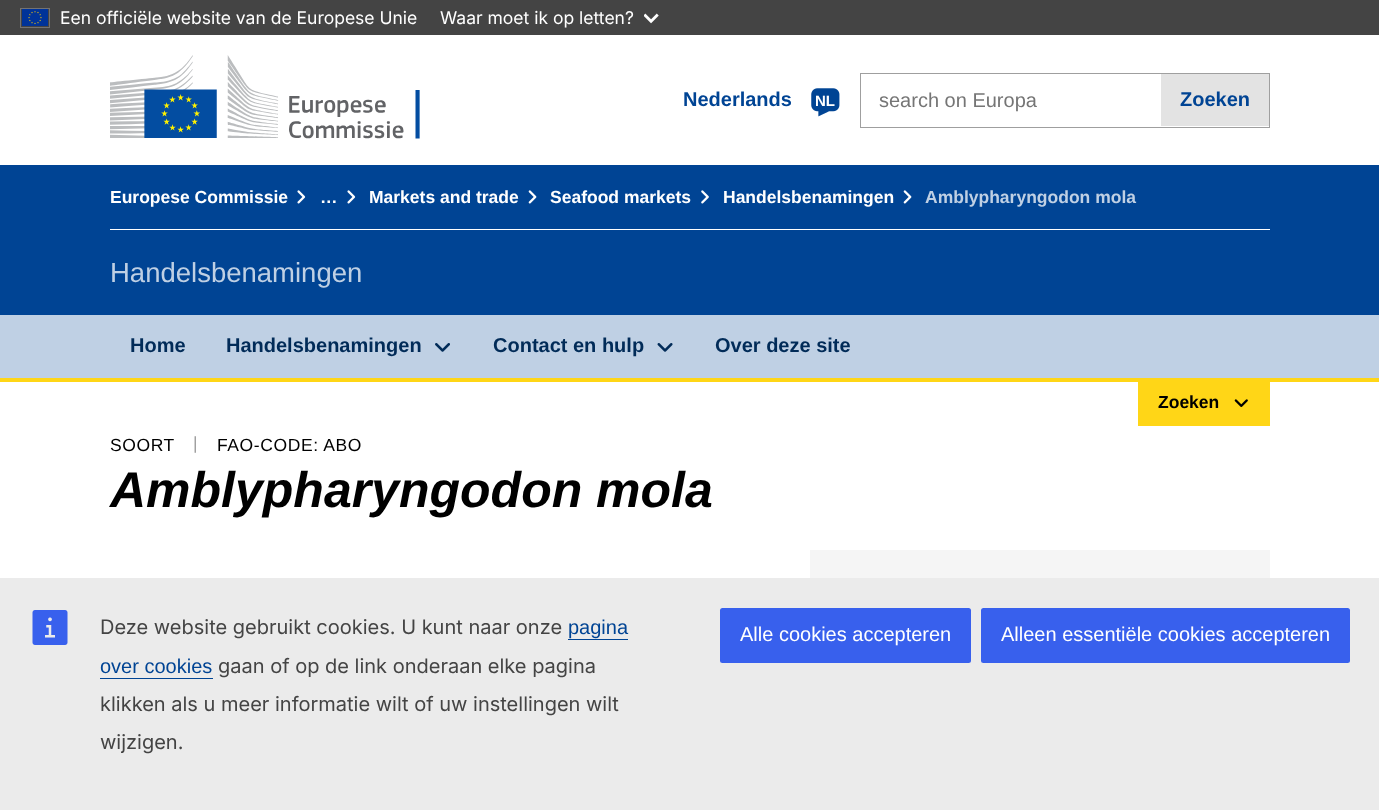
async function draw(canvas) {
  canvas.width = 1379
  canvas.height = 810
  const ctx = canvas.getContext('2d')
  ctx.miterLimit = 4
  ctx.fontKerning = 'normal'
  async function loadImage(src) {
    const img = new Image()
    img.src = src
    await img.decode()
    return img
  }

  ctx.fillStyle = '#fff'
  ctx.fillRect(0, 0, 1379, 810)
  ctx.fillStyle = '#444'
  ctx.fillRect(0, 0, 1379, 35)
  ctx.strokeStyle = '#737373'
  ctx.strokeRect(20.5, 8.5, 29, 19)
  ctx.drawImage(await loadImage('image0.png'), 22, 9, 26, 17)
  ctx.font = '17.5px Inter'
  ctx.fillStyle = '#fff'
  ctx.fillText('Een officiële website van de Europese Unie', 60, 24)
  ctx.fillText('Waar moet ik op letten?', 440, 24)
  ctx.drawImage(await loadImage('image1.png'), 644, 13, 15, 11)
  ctx.drawImage(await loadImage('image2.png'), 110, 55, 310, 84)
  ctx.font = 'bold 20px Liberation Sans'
  ctx.fillStyle = '#004494'
  ctx.fillText('Nederlands', 683, 106)
  ctx.drawImage(await loadImage('image3.png'), 811, 88, 29, 29)
  ctx.font = 'bold 15px Liberation Sans'
  ctx.fillStyle = '#fff'
  ctx.fillText('NL', 815, 106)
  ctx.strokeStyle = '#9f9f9f'
  ctx.strokeRect(860.5, 73.5, 409, 54)
  ctx.font = '20px Liberation Sans'
  ctx.fillStyle = '#757575'
  ctx.fillText('search on Europa', 879, 107)
  ctx.fillStyle = '#e3e3e3'
  ctx.fillRect(1161, 74, 108, 52)
  ctx.font = 'bold 20px Liberation Sans'
  ctx.fillStyle = '#004494'
  ctx.fillText('Zoeken', 1180, 106)
  ctx.fillRect(0, 165, 1379, 150)
  ctx.fillStyle = '#fff'
  ctx.fillRect(110, 229, 1160, 1)
  ctx.font = 'bold 17.5px Liberation Sans'
  ctx.fillText('Europese Commissie', 110, 203)
  ctx.drawImage(await loadImage('image4.png'), 297, 190, 9, 14)
  ctx.fillText('…', 320, 203)
  ctx.drawImage(await loadImage('image4.png'), 347, 190, 9, 14)
  ctx.fillText('Markets and trade', 369, 203)
  ctx.drawImage(await loadImage('image5.png'), 528, 190, 9, 14)
  ctx.fillText('Seafood markets', 550, 203)
  ctx.drawImage(await loadImage('image6.png'), 701, 190, 8, 14)
  ctx.fillText('Handelsbenamingen', 723, 203)
  ctx.drawImage(await loadImage('image5.png'), 903, 190, 9, 14)
  ctx.fillStyle = '#bfd0e4'
  ctx.fillText('Amblypharyngodon mola', 925, 203)
  ctx.font = '27.5px Liberation Sans'
  ctx.fillText('Handelsbenamingen', 110, 282)
  ctx.fillRect(0, 315, 1379, 63)
  ctx.font = 'bold 20px Liberation Sans'
  ctx.fillStyle = '#012b58'
  ctx.fillText('Home', 130, 352)
  ctx.fillText('Handelsbenamingen', 226, 352)
  ctx.drawImage(await loadImage('image7.png'), 435, 343, 15, 9)
  ctx.fillText('Contact en hulp', 493, 352)
  ctx.drawImage(await loadImage('image8.png'), 657, 343, 16, 9)
  ctx.fillText('Over deze site', 715, 352)
  ctx.fillStyle = '#ffd617'
  ctx.fillRect(0, 378, 1379, 4)
  ctx.fillRect(1138, 382, 132, 44)
  ctx.font = 'bold 17.5px Liberation Sans'
  ctx.fillStyle = '#000'
  ctx.fillText('Zoeken', 1158, 408)
  ctx.drawImage(await loadImage('image9.png'), 1234, 399, 14, 8)
  ctx.letterSpacing = '0.6px'
  ctx.font = '17.5px Liberation Sans'
  ctx.fillText('SOORT', 110, 451)
  ctx.fillStyle = '#9f9f9f'
  ctx.fillText('|', 193, 449)
  ctx.fillStyle = '#000'
  ctx.fillText('FAO-CODE: ABO', 217, 451)
  ctx.letterSpacing = '0px'
  ctx.font = 'italic bold 50px Liberation Sans'
  ctx.fillText('Amblypharyngodon mola', 110, 507)
  ctx.fillStyle = '#f5f5f5'
  ctx.fillRect(810, 550, 460, 28)
  ctx.fillStyle = '#ebebeb'
  ctx.fillRect(0, 578, 1379, 232)
  ctx.drawImage(await loadImage('image10.png'), 32, 610, 36, 35)
  ctx.font = '20px Inter'
  ctx.fillStyle = '#444'
  ctx.fillText('Deze website gebruikt cookies. U kunt naar onze', 100, 634)
  ctx.font = '20px Liberation Sans'
  ctx.fillStyle = '#004494'
  ctx.fillText('pagina', 568, 634)
  ctx.fillRect(568, 639, 60, 1)
  ctx.fillText('over cookies', 100, 673)
  ctx.fillRect(100, 678, 113, 1)
  ctx.font = '20px Inter'
  ctx.fillStyle = '#444'
  ctx.fillText('gaan of op de link onderaan elke pagina', 218, 673)
  ctx.fillText('klikken als u meer informatie wilt of uw instellingen wilt', 100, 711)
  ctx.fillText('wijzigen.', 100, 749)
  ctx.fillStyle = '#3860ed'
  ctx.beginPath()
  ctx.roundRect(720, 608, 251, 55, 2.5)
  ctx.fill()
  ctx.font = '20px Liberation Sans'
  ctx.fillStyle = '#fff'
  ctx.fillText('Alle cookies accepteren', 740, 641)
  ctx.fillStyle = '#3860ed'
  ctx.beginPath()
  ctx.roundRect(981, 608, 369, 55, 2.5)
  ctx.fill()
  ctx.fillStyle = '#fff'
  ctx.fillText('Alleen essentiële cookies accepteren', 1001, 641)
}

draw(document.querySelector('canvas'))
